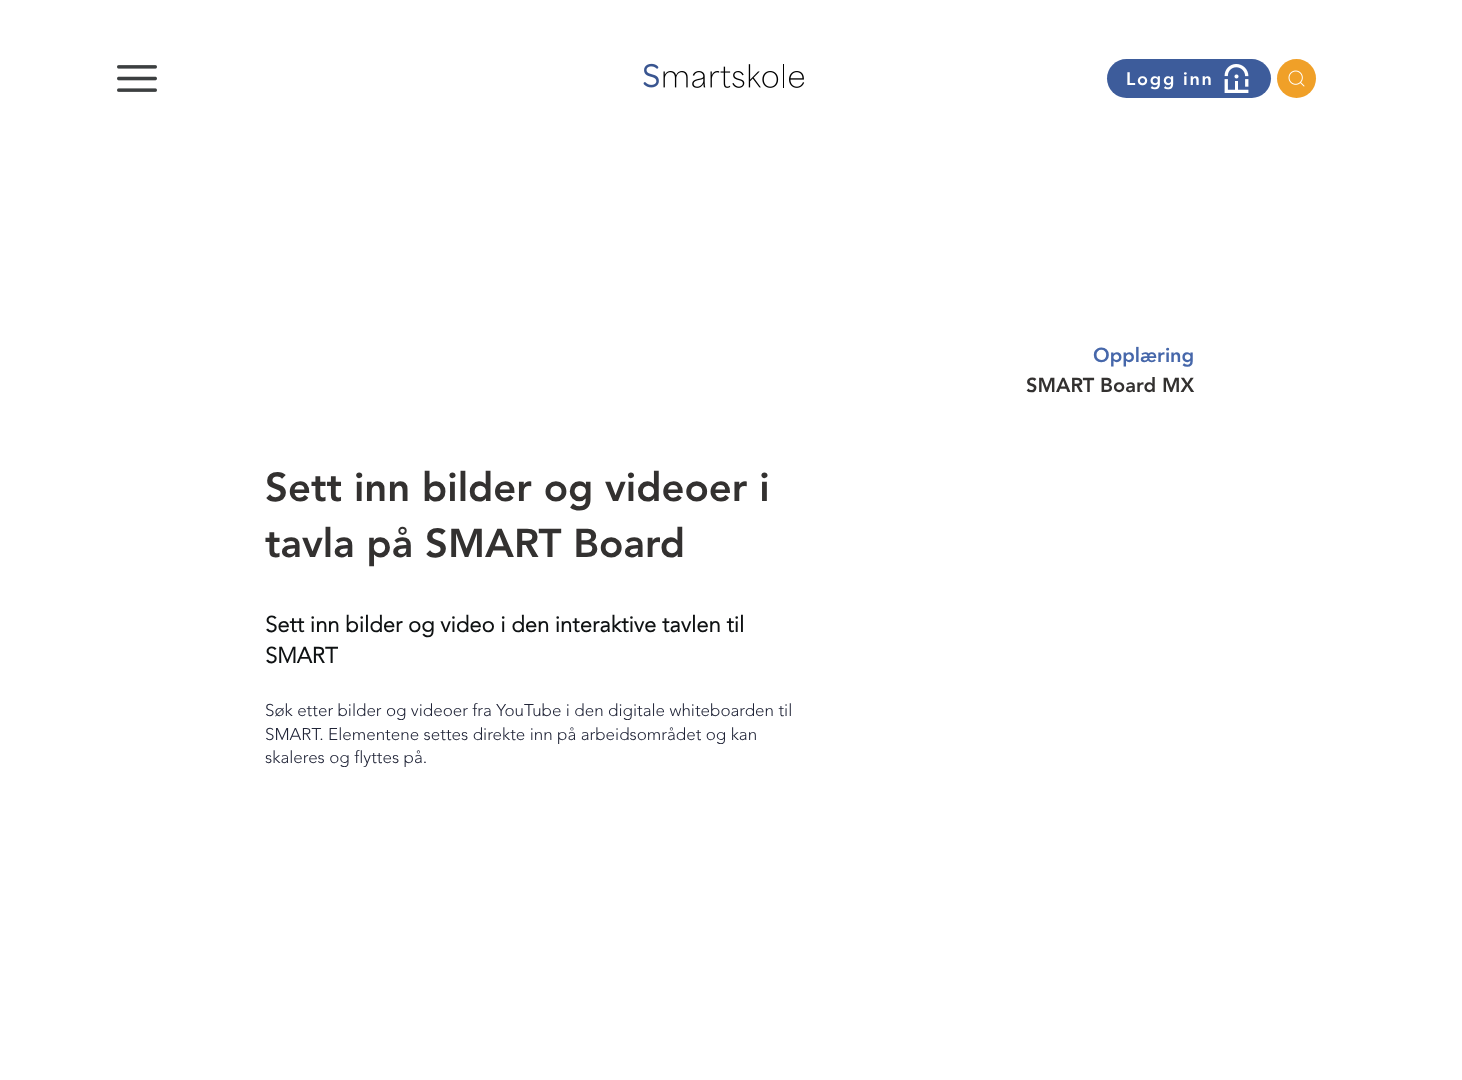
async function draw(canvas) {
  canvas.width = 1462
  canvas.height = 1080
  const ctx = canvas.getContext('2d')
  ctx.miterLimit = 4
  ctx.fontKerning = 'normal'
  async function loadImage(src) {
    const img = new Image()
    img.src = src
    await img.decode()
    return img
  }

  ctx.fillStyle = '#fff'
  ctx.fillRect(0, 0, 1462, 1080)
  ctx.drawImage(await loadImage('image0.png'), 117, 65, 40, 27)
  ctx.drawImage(await loadImage('image1.png'), 643, 63, 162, 25)
  ctx.drawImage(await loadImage('image3.png'), 1252, 59, 2, 39)
  ctx.fillStyle = '#3d5c9b'
  ctx.beginPath()
  ctx.roundRect(1107, 59, 164, 39, 19.5)
  ctx.fill()
  ctx.letterSpacing = '1.75px'
  ctx.font = '900 18px "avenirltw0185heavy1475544"'
  ctx.fillStyle = '#fff'
  ctx.fillText('Logg inn', 1126, 85)
  ctx.drawImage(await loadImage('image2.png'), 1224, 64, 25, 29)
  ctx.fillStyle = '#f0a028'
  ctx.beginPath()
  ctx.arc(1296.5, 78.5, 19.5, 0, 2 * Math.PI)
  ctx.fill()
  ctx.drawImage(await loadImage('image4.png'), 1288, 70, 17, 17)
  ctx.letterSpacing = '0px'
  ctx.font = '900 20px "avenirltw0185heavy1475544"'
  ctx.fillStyle = '#4667aa'
  ctx.fillText('Opplæring', 1093, 362)
  ctx.fillStyle = '#333130'
  ctx.fillText('SMART Board MX', 1026, 392)
  ctx.font = '900 40px "avenirltw0185heavy1475544"'
  ctx.fillText('Sett inn bilder og videoer i', 265, 501)
  ctx.fillText('tavla på SMART Board', 265, 557)
  ctx.font = 'bold 22px "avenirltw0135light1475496"'
  ctx.fillStyle = '#0f1213'
  ctx.fillText('Sett inn bilder og video i den interaktive tavlen til', 265, 632)
  ctx.fillText('SMART', 265, 663)
  ctx.font = '300 17px "avenirltw0135light1475496"'
  ctx.fillStyle = '#202437'
  ctx.fillText('Søk etter bilder og videoer fra YouTube i den digitale whiteboarden til', 265, 716)
  ctx.fillText('SMART. Elementene settes direkte inn på arbeidsområdet og kan', 265, 740)
  ctx.fillText('skaleres og flyttes på.', 265, 763)
}

draw(document.querySelector('canvas'))
